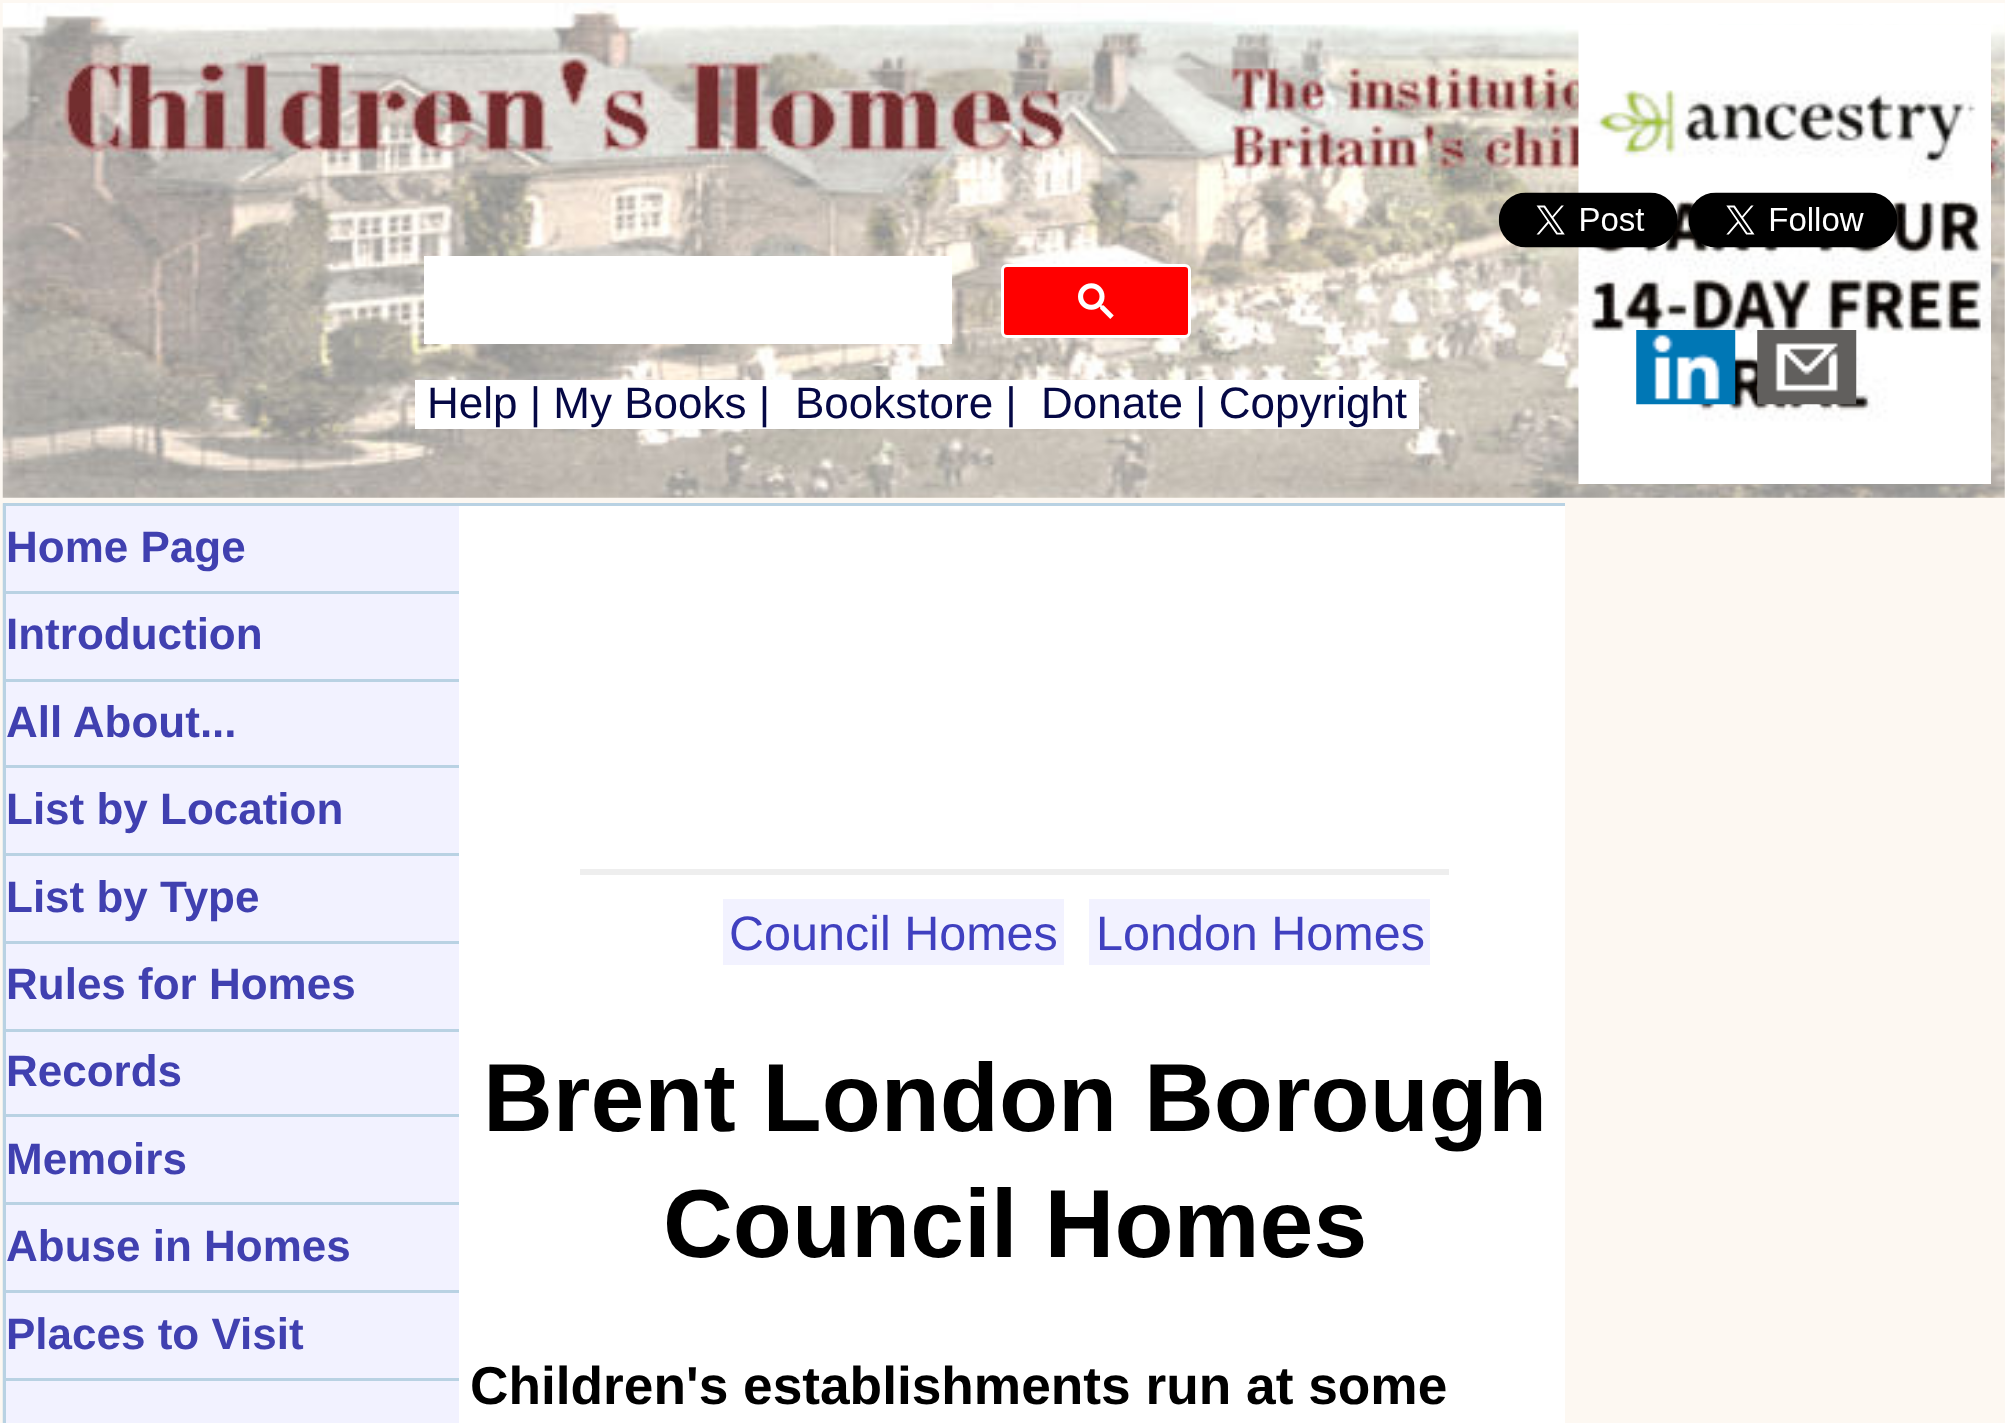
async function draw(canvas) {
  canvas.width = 2005
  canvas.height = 1423
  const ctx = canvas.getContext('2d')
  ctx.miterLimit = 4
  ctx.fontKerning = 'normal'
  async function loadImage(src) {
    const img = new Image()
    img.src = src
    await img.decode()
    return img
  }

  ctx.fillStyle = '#fdf8f2'
  ctx.fillRect(0, 0, 2005, 1423)
  ctx.drawImage(await loadImage('image0.png'), 2, 3, 2003, 495)
  ctx.drawImage(await loadImage('image1.png'), 1578, 25, 413, 459)
  ctx.fillStyle = '#fff'
  ctx.fillRect(424, 256, 528, 88)
  ctx.fillStyle = '#f00'
  ctx.beginPath()
  ctx.roundRect(1002.5, 265.5, 187, 71, 4.5)
  ctx.fill()
  ctx.strokeStyle = '#fff'
  ctx.lineWidth = 3
  ctx.stroke()
  ctx.drawImage(await loadImage('image2.png'), 1078, 283, 36, 36)
  ctx.drawImage(await loadImage('image3.png'), 1498, 192, 180, 56)
  ctx.drawImage(await loadImage('image4.png'), 1688, 192, 210, 56)
  ctx.drawImage(await loadImage('image5.png'), 1636, 330, 100, 75)
  ctx.drawImage(await loadImage('image6.png'), 1757, 330, 100, 75)
  ctx.fillStyle = '#fff'
  ctx.fillRect(415, 380, 1004, 49)
  ctx.font = '44px Liberation Sans'
  ctx.fillStyle = '#050845'
  ctx.fillText('Help | My Books |', 427, 418)
  ctx.fillText('Bookstore |', 795, 418)
  ctx.fillText('Donate | Copyright', 1041, 418)
  ctx.drawImage(await loadImage('image7.png'), 2, 503, 1, 920)
  ctx.fillStyle = '#b9d2e3'
  ctx.fillRect(3, 503, 1562, 3)
  ctx.fillRect(3, 503, 3, 920)
  ctx.fillStyle = '#f2f2ff'
  ctx.fillRect(6, 506, 453, 917)
  ctx.fillStyle = '#b9d2e3'
  ctx.fillRect(6, 591, 453, 3)
  ctx.font = 'bold 44px Liberation Sans'
  ctx.fillStyle = '#4040b0'
  ctx.fillText('Home Page', 6, 562)
  ctx.fillStyle = '#b9d2e3'
  ctx.fillRect(6, 679, 453, 3)
  ctx.fillStyle = '#4040b0'
  ctx.fillText('Introduction', 6, 649)
  ctx.fillStyle = '#b9d2e3'
  ctx.fillRect(6, 765, 453, 3)
  ctx.fillStyle = '#4040b0'
  ctx.fillText('All About...', 6, 737)
  ctx.fillStyle = '#b9d2e3'
  ctx.fillRect(6, 853, 453, 3)
  ctx.fillStyle = '#4040b0'
  ctx.fillText('List by Location', 6, 824)
  ctx.fillStyle = '#b9d2e3'
  ctx.fillRect(6, 941, 453, 3)
  ctx.fillStyle = '#4040b0'
  ctx.fillText('List by Type', 6, 912)
  ctx.fillStyle = '#b9d2e3'
  ctx.fillRect(6, 1029, 453, 3)
  ctx.fillStyle = '#4040b0'
  ctx.fillText('Rules for Homes', 6, 999)
  ctx.fillStyle = '#b9d2e3'
  ctx.fillRect(6, 1114, 453, 3)
  ctx.fillStyle = '#4040b0'
  ctx.fillText('Records', 6, 1086)
  ctx.fillStyle = '#b9d2e3'
  ctx.fillRect(6, 1202, 453, 3)
  ctx.fillStyle = '#4040b0'
  ctx.fillText('Memoirs', 6, 1174)
  ctx.fillStyle = '#b9d2e3'
  ctx.fillRect(6, 1290, 453, 3)
  ctx.fillStyle = '#4040b0'
  ctx.fillText('Abuse in Homes', 6, 1261)
  ctx.fillStyle = '#b9d2e3'
  ctx.fillRect(6, 1378, 453, 3)
  ctx.fillStyle = '#4040b0'
  ctx.fillText('Places to Visit', 6, 1349)
  ctx.fillStyle = '#fff'
  ctx.fillRect(459, 506, 1106, 917)
  ctx.fillStyle = '#eee'
  ctx.fillRect(580, 869, 869, 6)
  ctx.fillStyle = '#f2f2ff'
  ctx.fillRect(723, 899, 341, 66)
  ctx.font = '48.5px Liberation Sans'
  ctx.fillStyle = '#4040c0'
  ctx.fillText('Council Homes', 729, 950)
  ctx.fillStyle = '#f2f2ff'
  ctx.fillRect(1089, 899, 341, 66)
  ctx.fillStyle = '#4040c0'
  ctx.fillText('London Homes', 1096, 950)
  ctx.font = 'bold 96.75px Liberation Sans'
  ctx.fillStyle = '#000'
  ctx.fillText('Brent London Borough', 483, 1131)
  ctx.fillText('Council Homes', 663, 1257)
  ctx.font = 'bold 53.25px Liberation Sans'
  ctx.fillText('Children\'s establishments run at some', 470, 1404)
}

draw(document.querySelector('canvas'))
